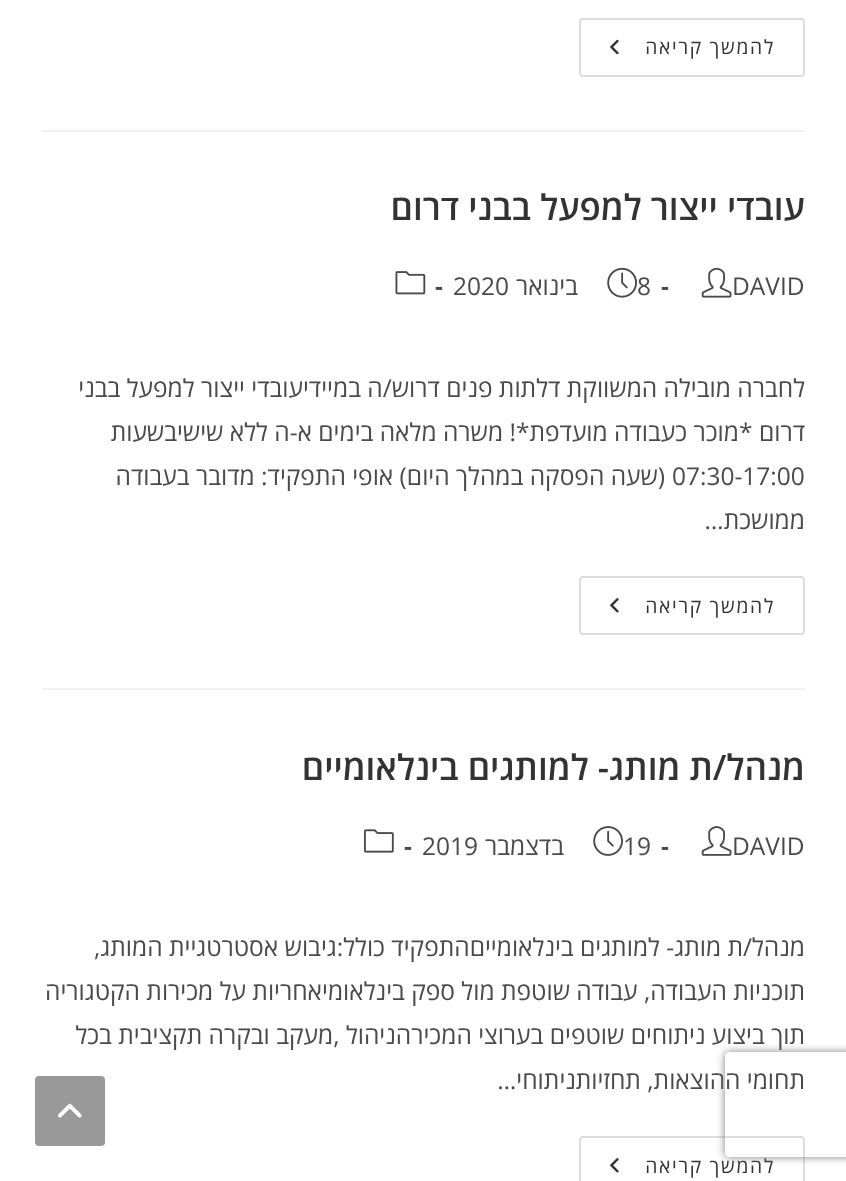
async function draw(canvas) {
  canvas.width = 846
  canvas.height = 1181
  const ctx = canvas.getContext('2d')
  ctx.miterLimit = 4
  ctx.fontKerning = 'normal'
  async function loadImage(src) {
    const img = new Image()
    img.src = src
    await img.decode()
    return img
  }

  ctx.fillStyle = '#fff'
  ctx.fillRect(0, 0, 846, 1181)
  ctx.fillStyle = '#f1f1f1'
  ctx.fillRect(42, 130, 763, 2)
  ctx.beginPath()
  ctx.roundRect(580, 19, 224, 57, 3)
  ctx.strokeStyle = '#ddd'
  ctx.lineWidth = 2
  ctx.stroke()
  ctx.letterSpacing = '1.75px'
  ctx.direction = 'rtl'
  ctx.font = '19.25px Open Sans'
  ctx.fillStyle = '#333'
  ctx.fillText('להמשך קריאה', 775, 54)
  ctx.drawImage(await loadImage('image0.png'), 610, 39, 9, 16)
  ctx.fillStyle = '#f1f1f1'
  ctx.fillRect(42, 688, 763, 2)
  ctx.letterSpacing = '0px'
  ctx.font = '600 35px Open Sans'
  ctx.fillStyle = '#333'
  ctx.fillText('עובדי ייצור למפעל בבני דרום', 805, 220)
  ctx.direction = 'ltr'
  ctx.font = '24.5px Open Sans'
  ctx.fillStyle = '#4a4a4a'
  ctx.fillText('DAVID', 732, 295)
  ctx.drawImage(await loadImage('image1.png'), 701, 267, 31, 31)
  ctx.font = 'bold 24.5px Open Sans'
  ctx.fillText('-', 661, 295)
  ctx.font = '24.5px Open Sans'
  ctx.fillText('8', 637, 295)
  ctx.drawImage(await loadImage('image2.png'), 607, 267, 30, 31)
  ctx.direction = 'rtl'
  ctx.fillText('בינואר', 578, 295)
  ctx.direction = 'ltr'
  ctx.fillText('2020', 453, 295)
  ctx.font = 'bold 24.5px Open Sans'
  ctx.fillText('-', 435, 295)
  ctx.drawImage(await loadImage('image3.png'), 395, 271, 31, 24)
  ctx.direction = 'rtl'
  ctx.font = '24.5px Open Sans'
  ctx.fillText('לחברה מובילה המשווקת דלתות פנים דרוש/ה במיידיעובדי ייצור למפעל בבני', 805, 397)
  ctx.fillText('דרום *מוכר כעבודה מועדפת*! משרה מלאה בימים א-ה ללא שישיבשעות', 805, 441)
  ctx.direction = 'ltr'
  ctx.fillText('07:30-17:00', 672, 485)
  ctx.direction = 'rtl'
  ctx.fillText('(שעה הפסקה במהלך היום) אופי התפקיד: מדובר בעבודה', 665, 485)
  ctx.fillText('ממושכת…', 805, 529)
  ctx.beginPath()
  ctx.roundRect(580, 577, 224, 57, 3)
  ctx.stroke()
  ctx.letterSpacing = '1.75px'
  ctx.font = '19.25px Open Sans'
  ctx.fillStyle = '#333'
  ctx.fillText('להמשך קריאה', 775, 613)
  ctx.drawImage(await loadImage('image4.png'), 610, 598, 9, 15)
  ctx.letterSpacing = '0px'
  ctx.font = '600 35px Open Sans'
  ctx.fillText('מנהל/ת מותג- למותגים בינלאומיים', 805, 780)
  ctx.direction = 'ltr'
  ctx.font = '24.5px Open Sans'
  ctx.fillStyle = '#4a4a4a'
  ctx.fillText('DAVID', 732, 855)
  ctx.drawImage(await loadImage('image5.png'), 701, 826, 31, 30)
  ctx.font = 'bold 24.5px Open Sans'
  ctx.fillText('-', 661, 855)
  ctx.font = '24.5px Open Sans'
  ctx.fillText('19', 623, 855)
  ctx.drawImage(await loadImage('image6.png'), 593, 826, 30, 30)
  ctx.direction = 'rtl'
  ctx.fillText('בדצמבר', 564, 855)
  ctx.direction = 'ltr'
  ctx.fillText('2019', 422, 855)
  ctx.font = 'bold 24.5px Open Sans'
  ctx.fillText('-', 404, 855)
  ctx.drawImage(await loadImage('image7.png'), 364, 829, 30, 24)
  ctx.direction = 'rtl'
  ctx.font = '24.5px Open Sans'
  ctx.fillText('מנהל/ת מותג- למותגים בינלאומייםהתפקיד כולל:גיבוש אסטרטגיית המותג,', 805, 956)
  ctx.fillText('תוכניות העבודה, עבודה שוטפת מול ספק בינלאומיאחריות על מכירות הקטגוריה', 805, 1000)
  ctx.fillText('תוך ביצוע ניתוחים שוטפים בערוצי המכירהניהול ,מעקב ובקרה תקציבית בכל', 805, 1044)
  ctx.fillText('תחומי ההוצאות, תחזיותניתוחי…', 805, 1089)
  ctx.beginPath()
  ctx.roundRect(580, 1137, 224, 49, 3)
  ctx.stroke()
  ctx.letterSpacing = '1.75px'
  ctx.font = '19.25px Open Sans'
  ctx.fillStyle = '#333'
  ctx.fillText('להמשך קריאה', 775, 1173)
  ctx.drawImage(await loadImage('image4.png'), 610, 1158, 9, 15)
  ctx.save()
  ctx.beginPath()
  ctx.moveTo(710, 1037)
  ctx.lineTo(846, 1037)
  ctx.lineTo(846, 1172)
  ctx.lineTo(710, 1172)
  ctx.closePath()
  ctx.moveTo(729, 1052)
  ctx.lineTo(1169, 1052)
  ctx.bezierCurveTo(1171, 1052, 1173, 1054, 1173, 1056)
  ctx.lineTo(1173, 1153)
  ctx.bezierCurveTo(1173, 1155, 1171, 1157, 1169, 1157)
  ctx.lineTo(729, 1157)
  ctx.bezierCurveTo(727, 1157, 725, 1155, 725, 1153)
  ctx.lineTo(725, 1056)
  ctx.bezierCurveTo(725, 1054, 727, 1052, 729, 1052)
  ctx.closePath()
  ctx.clip('evenodd')
  ctx.fillStyle = '#808080'
  ctx.filter = 'blur(4.5px)'
  ctx.beginPath()
  ctx.roundRect(725, 1052, 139, 105, 4)
  ctx.fill()
  ctx.filter = 'none'
  ctx.restore()
  ctx.fillStyle = '#999'
  ctx.beginPath()
  ctx.roundRect(35, 1076, 70, 70, 4)
  ctx.fill()
  ctx.drawImage(await loadImage('image8.png'), 58, 1103, 24, 15)
}

draw(document.querySelector('canvas'))
